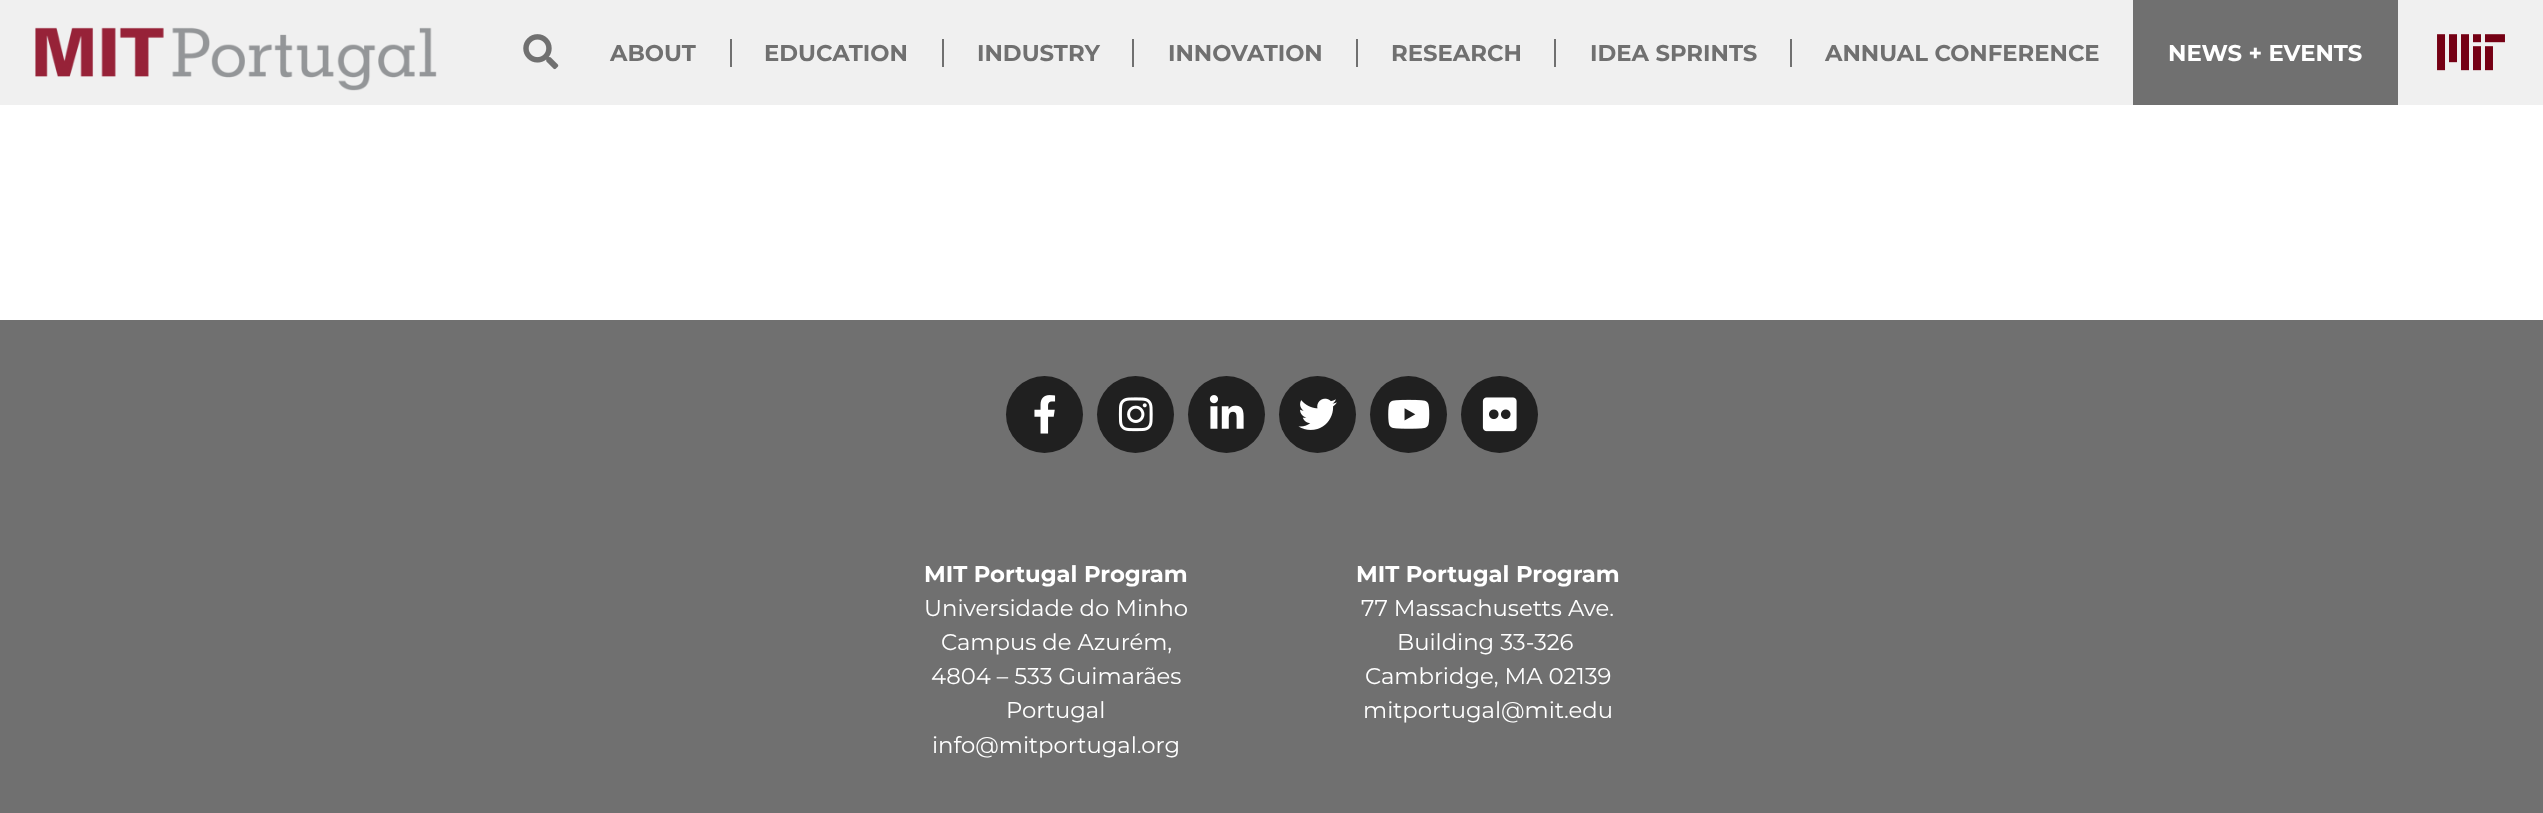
async function draw(canvas) {
  canvas.width = 2543
  canvas.height = 813
  const ctx = canvas.getContext('2d')
  ctx.miterLimit = 4
  ctx.fontKerning = 'normal'
  async function loadImage(src) {
    const img = new Image()
    img.src = src
    await img.decode()
    return img
  }

  ctx.fillStyle = '#fff'
  ctx.fillRect(0, 0, 2543, 813)
  ctx.fillStyle = '#f0f0f0'
  ctx.fillRect(0, 0, 2543, 105)
  ctx.drawImage(await loadImage('image0.png'), 35, 27, 402, 64)
  ctx.drawImage(await loadImage('image1.png'), 523, 34, 36, 36)
  ctx.font = 'bold 22.75px Montserrat'
  ctx.fillStyle = '#707070'
  ctx.fillText('ABOUT', 610, 61)
  ctx.fillRect(730, 39, 2, 28)
  ctx.fillText('EDUCATION', 764, 61)
  ctx.fillRect(942, 39, 2, 28)
  ctx.fillText('INDUSTRY', 977, 61)
  ctx.fillRect(1132, 39, 2, 28)
  ctx.fillText('INNOVATION', 1168, 61)
  ctx.fillRect(1356, 39, 2, 28)
  ctx.fillText('RESEARCH', 1391, 61)
  ctx.fillRect(1554, 39, 2, 28)
  ctx.fillText('IDEA SPRINTS', 1590, 61)
  ctx.fillRect(1790, 39, 2, 28)
  ctx.fillText('ANNUAL CONFERENCE', 1825, 61)
  ctx.fillRect(2133, 0, 265, 105)
  ctx.fillStyle = '#fff'
  ctx.fillText('NEWS + EVENTS', 2168, 61)
  ctx.drawImage(await loadImage('image2.png'), 2437, 34, 68, 37)
  ctx.fillStyle = '#707070'
  ctx.fillRect(0, 320, 2543, 493)
  ctx.fillStyle = '#202020'
  ctx.beginPath()
  ctx.arc(1044.5, 414.5, 38.5, 0, 2 * Math.PI)
  ctx.fill()
  ctx.drawImage(await loadImage('image3.png'), 1034, 395, 22, 39)
  ctx.beginPath()
  ctx.arc(1135.5, 414.5, 38.5, 0, 2 * Math.PI)
  ctx.fill()
  ctx.drawImage(await loadImage('image4.png'), 1118, 397, 35, 35)
  ctx.beginPath()
  ctx.arc(1226.5, 414.5, 38.5, 0, 2 * Math.PI)
  ctx.fill()
  ctx.drawImage(await loadImage('image5.png'), 1209, 395, 35, 34)
  ctx.beginPath()
  ctx.arc(1317.5, 414.5, 38.5, 0, 2 * Math.PI)
  ctx.fill()
  ctx.drawImage(await loadImage('image6.png'), 1298, 398, 39, 32)
  ctx.beginPath()
  ctx.arc(1408.5, 414.5, 38.5, 0, 2 * Math.PI)
  ctx.fill()
  ctx.drawImage(await loadImage('image7.png'), 1388, 399, 42, 30)
  ctx.beginPath()
  ctx.arc(1499.5, 414.5, 38.5, 0, 2 * Math.PI)
  ctx.fill()
  ctx.drawImage(await loadImage('image8.png'), 1482, 397, 35, 35)
  ctx.fillStyle = '#fff'
  ctx.fillText('MIT Portugal Program', 924, 582)
  ctx.font = '22.75px Montserrat'
  ctx.fillText('Universidade do Minho', 924, 616)
  ctx.fillText('Campus de Azurém,', 941, 650)
  ctx.fillText('4804 – 533 Guimarães', 931, 684)
  ctx.fillText('Portugal', 1006, 718)
  ctx.fillText('info@mitportugal.org', 932, 753)
  ctx.font = 'bold 22.75px Montserrat'
  ctx.fillText('MIT Portugal Program', 1356, 582)
  ctx.font = '22.75px Montserrat'
  ctx.fillText('77 Massachusetts Ave.', 1361, 616)
  ctx.fillText('Building 33-326', 1397, 650)
  ctx.fillText('Cambridge, MA 02139', 1365, 684)
  ctx.fillText('mitportugal@mit.edu', 1363, 718)
}

draw(document.querySelector('canvas'))
